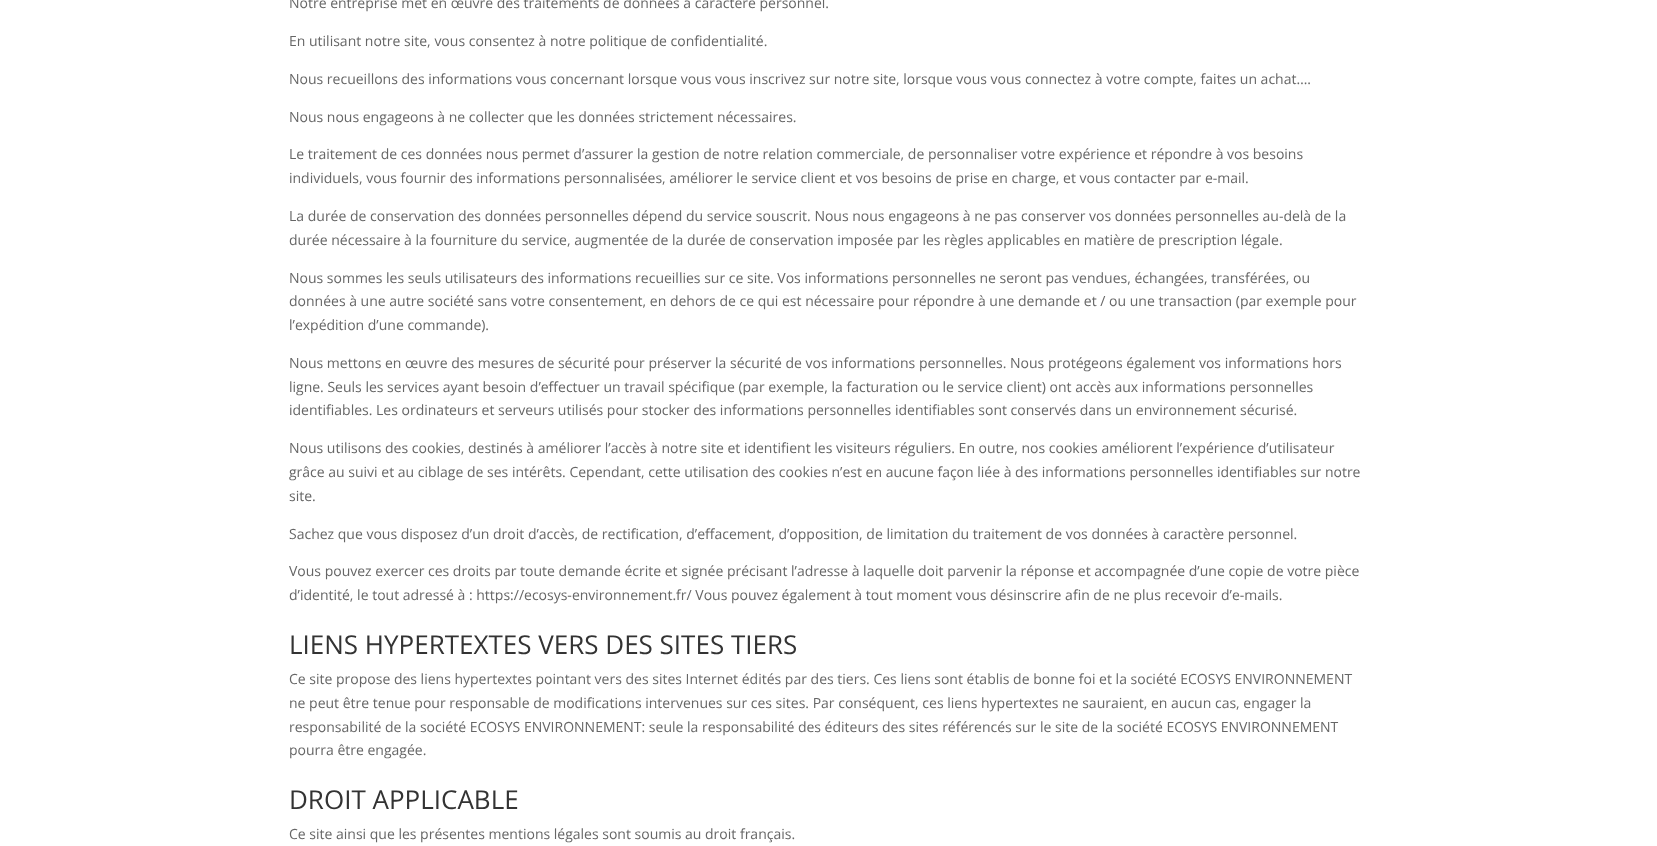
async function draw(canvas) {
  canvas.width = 1657
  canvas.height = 846
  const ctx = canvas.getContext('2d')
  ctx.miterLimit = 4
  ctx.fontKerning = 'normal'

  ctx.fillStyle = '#fff'
  ctx.fillRect(0, 0, 1657, 846)
  ctx.font = '14px Open Sans'
  ctx.fillStyle = '#666'
  ctx.fillText('Notre entreprise met en œuvre des traitements de données à caractère personnel.', 289, 8)
  ctx.fillText('En utilisant notre site, vous consentez à notre politique de confidentialité.', 289, 46)
  ctx.fillText('Nous recueillons des informations vous concernant lorsque vous vous inscrivez sur notre site, lorsque vous vous connectez à votre compte, faites un achat….', 289, 84)
  ctx.fillText('Nous nous engageons à ne collecter que les données strictement nécessaires.', 289, 122)
  ctx.fillText('Le traitement de ces données nous permet d’assurer la gestion de notre relation commerciale, de personnaliser votre expérience et répondre à vos besoins', 289, 159)
  ctx.fillText('individuels, vous fournir des informations personnalisées, améliorer le service client et vos besoins de prise en charge, et vous contacter par e-mail.', 289, 183)
  ctx.fillText('La durée de conservation des données personnelles dépend du service souscrit. Nous nous engageons à ne pas conserver vos données personnelles au-delà de la', 289, 221)
  ctx.fillText('durée nécessaire à la fourniture du service, augmentée de la durée de conservation imposée par les règles applicables en matière de prescription légale.', 289, 245)
  ctx.fillText('Nous sommes les seuls utilisateurs des informations recueillies sur ce site. Vos informations personnelles ne seront pas vendues, échangées, transférées, ou', 289, 283)
  ctx.fillText('données à une autre société sans votre consentement, en dehors de ce qui est nécessaire pour répondre à une demande et / ou une transaction (par exemple pour', 289, 306)
  ctx.fillText('l’expédition d’une commande).', 289, 330)
  ctx.fillText('Nous mettons en œuvre des mesures de sécurité pour préserver la sécurité de vos informations personnelles. Nous protégeons également vos informations hors', 289, 368)
  ctx.fillText('ligne. Seuls les services ayant besoin d’effectuer un travail spécifique (par exemple, la facturation ou le service client) ont accès aux informations personnelles', 289, 392)
  ctx.fillText('identifiables. Les ordinateurs et serveurs utilisés pour stocker des informations personnelles identifiables sont conservés dans un environnement sécurisé.', 289, 415)
  ctx.fillText('Nous utilisons des cookies, destinés à améliorer l’accès à notre site et identifient les visiteurs réguliers. En outre, nos cookies améliorent l’expérience d’utilisateur', 289, 453)
  ctx.fillText('grâce au suivi et au ciblage de ses intérêts. Cependant, cette utilisation des cookies n’est en aucune façon liée à des informations personnelles identifiables sur notre', 289, 477)
  ctx.fillText('site.', 289, 501)
  ctx.fillText('Sachez que vous disposez d’un droit d’accès, de rectification, d’effacement, d’opposition, de limitation du traitement de vos données à caractère personnel.', 289, 539)
  ctx.fillText('Vous pouvez exercer ces droits par toute demande écrite et signée précisant l’adresse à laquelle doit parvenir la réponse et accompagnée d’une copie de votre pièce', 289, 576)
  ctx.fillText('d’identité, le tout adressé à : https://ecosys-environnement.fr/ Vous pouvez également à tout moment vous désinscrire afin de ne plus recevoir d’e-mails.', 289, 600)
  ctx.font = '26px Open Sans'
  ctx.fillStyle = '#333'
  ctx.fillText('LIENS HYPERTEXTES VERS DES SITES TIERS', 289, 654)
  ctx.font = '14px Open Sans'
  ctx.fillStyle = '#666'
  ctx.fillText('Ce site propose des liens hypertextes pointant vers des sites Internet édités par des tiers. Ces liens sont établis de bonne foi et la société ECOSYS ENVIRONNEMENT', 289, 684)
  ctx.fillText('ne peut être tenue pour responsable de modifications intervenues sur ces sites. Par conséquent, ces liens hypertextes ne sauraient, en aucun cas, engager la', 289, 708)
  ctx.fillText('responsabilité de la société ECOSYS ENVIRONNEMENT: seule la responsabilité des éditeurs des sites référencés sur le site de la société ECOSYS ENVIRONNEMENT', 289, 732)
  ctx.fillText('pourra être engagée.', 289, 755)
  ctx.font = '26px Open Sans'
  ctx.fillStyle = '#333'
  ctx.fillText('DROIT APPLICABLE', 289, 809)
  ctx.font = '14px Open Sans'
  ctx.fillStyle = '#666'
  ctx.fillText('Ce site ainsi que les présentes mentions légales sont soumis au droit français.', 289, 839)
}

draw(document.querySelector('canvas'))
